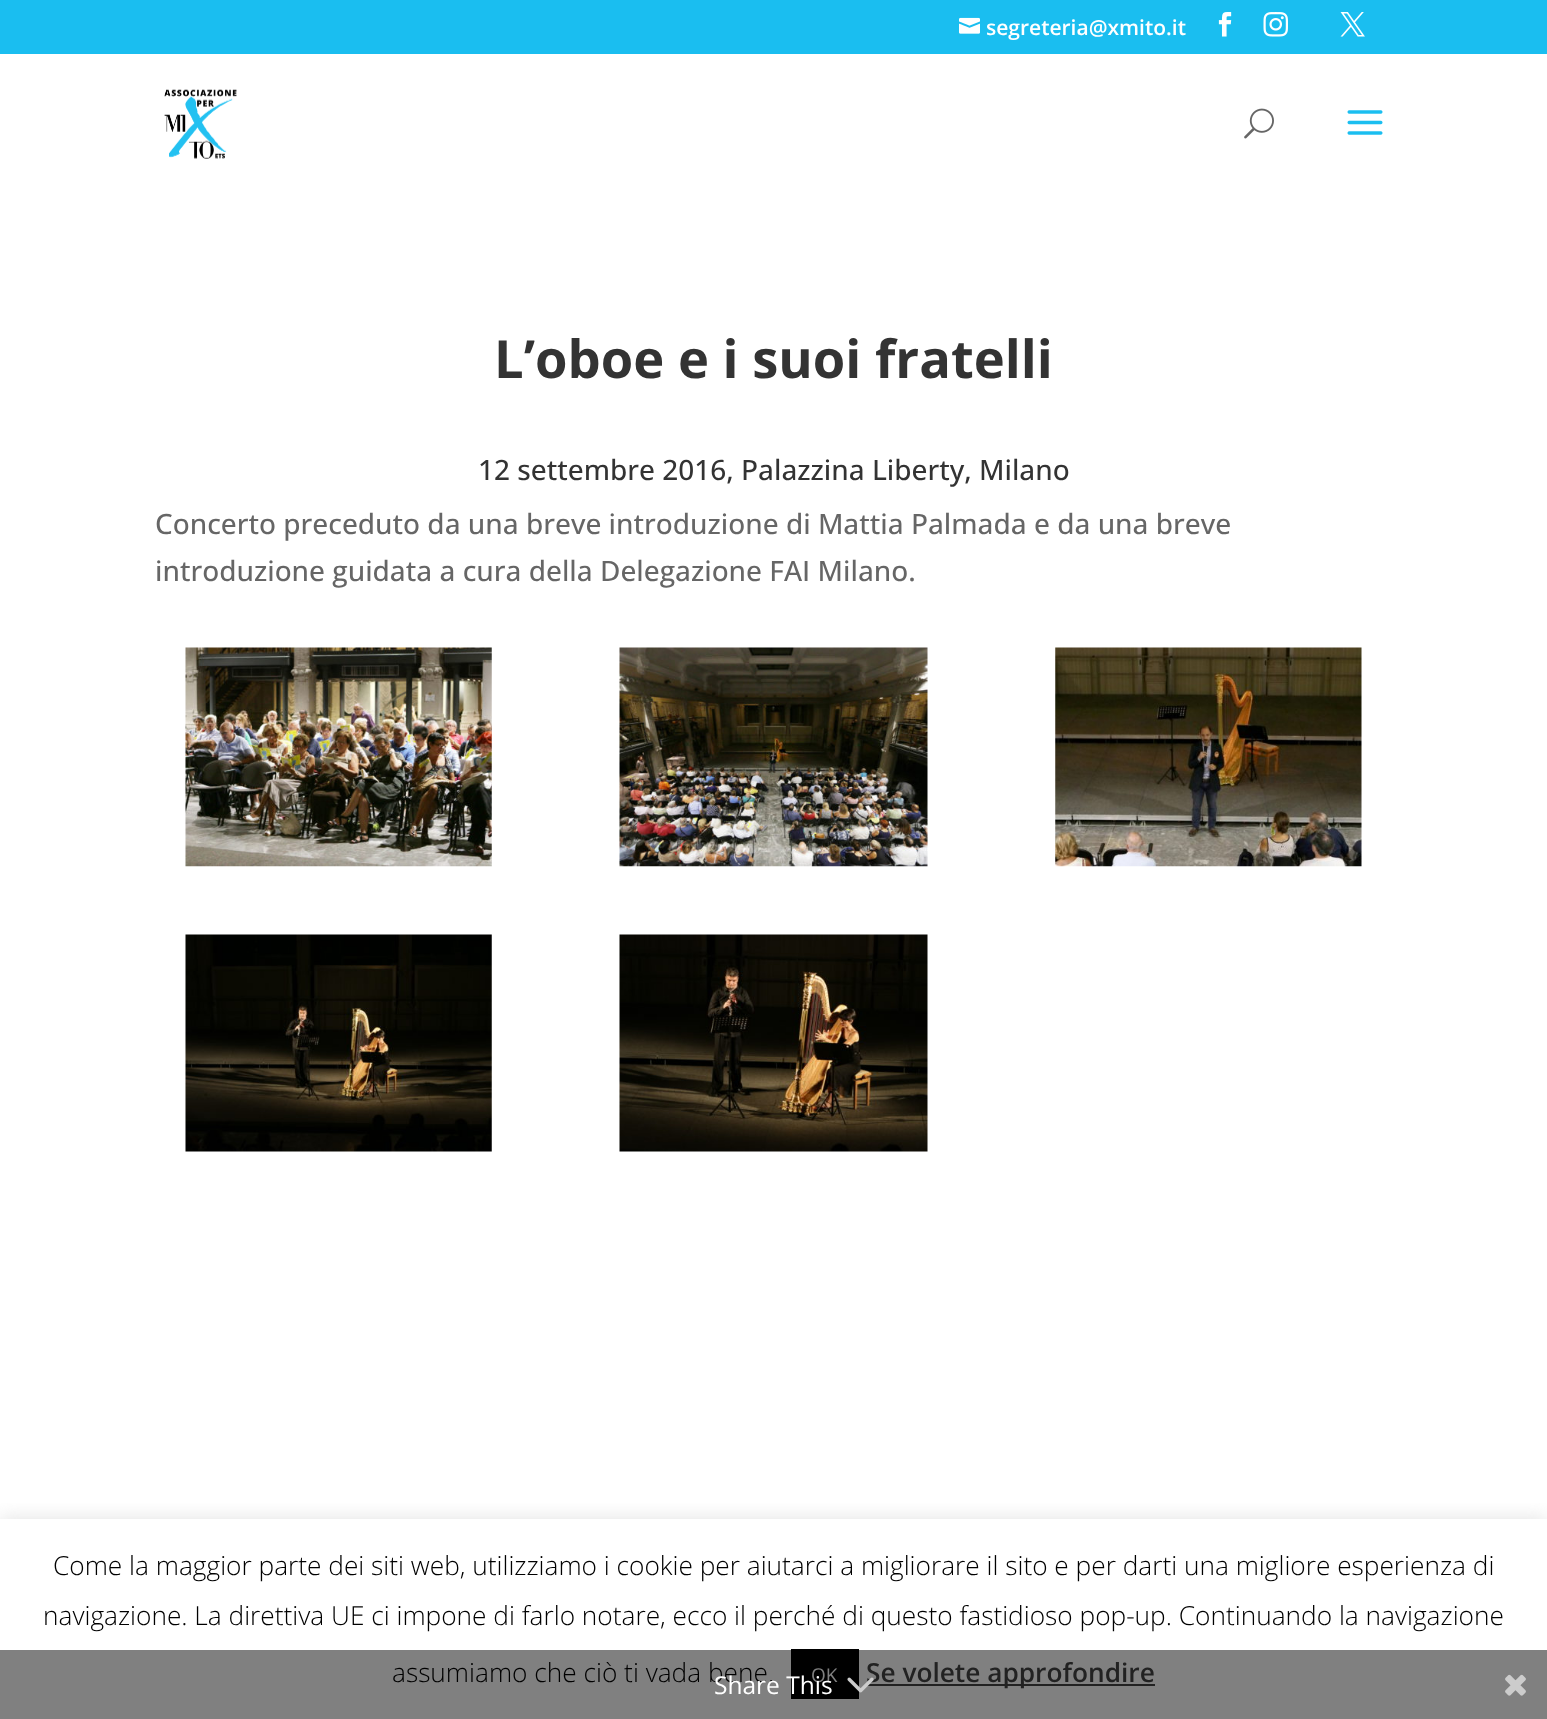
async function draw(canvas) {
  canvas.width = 1547
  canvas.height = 1719
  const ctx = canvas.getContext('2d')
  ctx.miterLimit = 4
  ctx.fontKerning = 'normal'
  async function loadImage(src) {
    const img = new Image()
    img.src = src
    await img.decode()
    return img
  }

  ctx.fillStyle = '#fff'
  ctx.fillRect(0, 0, 1547, 1719)
  ctx.fillStyle = '#1abef0'
  ctx.fillRect(0, 0, 1547, 54)
  ctx.drawImage(await loadImage('image0.png'), 959, 17, 21, 17)
  ctx.font = '600 21px Open Sans'
  ctx.fillStyle = '#fff'
  ctx.fillText('segreteria@xmito.it', 986, 35)
  ctx.drawImage(await loadImage('image1.png'), 1218, 12, 14, 25)
  ctx.drawImage(await loadImage('image2.png'), 1263, 12, 25, 25)
  ctx.drawImage(await loadImage('image3.png'), 1340, 12, 25, 25)
  ctx.drawImage(await loadImage('image4.png'), 164, 89, 73, 70)
  ctx.drawImage(await loadImage('image5.png'), 1244, 108, 30, 31)
  ctx.drawImage(await loadImage('image6.png'), 1347, 110, 36, 25)
  ctx.fillStyle = '#808080'
  ctx.fillRect(0, 1650, 1547, 69)
  ctx.font = 'bold 52.5px Open Sans'
  ctx.fillStyle = '#333'
  ctx.fillText('L’oboe e i suoi fratelli', 494, 378)
  ctx.font = '500 28px Open Sans'
  ctx.fillText('12 settembre 2016, Palazzina Liberty, Milano', 478, 480)
  ctx.fillStyle = '#666'
  ctx.fillText('Concerto preceduto da una breve introduzione di Mattia Palmada e da una breve', 155, 534)
  ctx.fillText('introduzione guidata a cura della Delegazione FAI Milano.', 155, 581)
  ctx.drawImage(await loadImage('image7.png'), 185, 647, 307, 220)
  ctx.drawImage(await loadImage('image8.png'), 619, 647, 309, 220)
  ctx.drawImage(await loadImage('image9.png'), 1055, 647, 307, 220)
  ctx.drawImage(await loadImage('image10.png'), 185, 934, 307, 218)
  ctx.drawImage(await loadImage('image11.png'), 619, 934, 309, 218)
  ctx.save()
  ctx.beginPath()
  ctx.rect(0, 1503, 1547, 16)
  ctx.clip()
  ctx.fillStyle = '#acabab4d'
  ctx.filter = 'blur(9px)'
  ctx.beginPath()
  ctx.rect(0, 1517, 1547, 202)
  ctx.fill()
  ctx.filter = 'none'
  ctx.restore()
  ctx.font = '300 26.25px Open Sans'
  ctx.fillStyle = '#000'
  ctx.fillText('Come la maggior parte dei siti web, utilizziamo i cookie per aiutarci a migliorare il sito e per darti una migliore esperienza di', 53, 1575)
  ctx.fillText('navigazione. La direttiva UE ci impone di farlo notare, ecco il perché di questo fastidioso pop-up. Continuando la navigazione', 43, 1625)
  ctx.fillText('assumiamo che ciò ti vada bene.', 392, 1682)
  ctx.fillRect(791, 1649, 68, 50)
  ctx.font = '19px Open Sans'
  ctx.fillStyle = '#808080'
  ctx.fillText('OK', 811, 1682)
  ctx.fillStyle = '#222'
  ctx.fillRect(866, 1684, 289, 2)
  ctx.font = '600 26.25px Open Sans'
  ctx.fillText('Se volete approfondire', 866, 1682)
  ctx.font = '24.5px Open Sans'
  ctx.fillStyle = '#fff'
  ctx.fillText('Share This', 714, 1694)
  ctx.drawImage(await loadImage('image12.png'), 847, 1677, 27, 16)
  ctx.drawImage(await loadImage('image13.png'), 1505, 1674, 21, 22)
}

draw(document.querySelector('canvas'))
